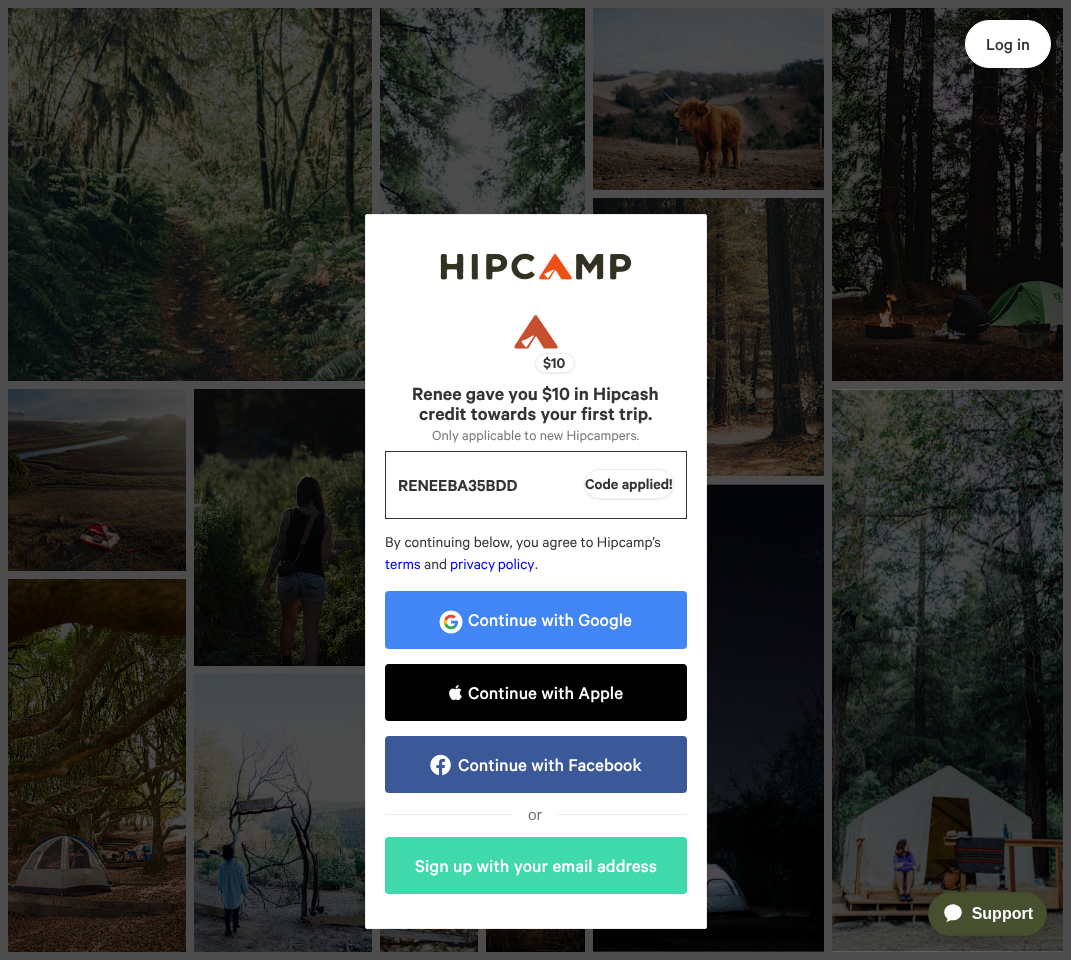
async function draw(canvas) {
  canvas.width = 1071
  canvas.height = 960
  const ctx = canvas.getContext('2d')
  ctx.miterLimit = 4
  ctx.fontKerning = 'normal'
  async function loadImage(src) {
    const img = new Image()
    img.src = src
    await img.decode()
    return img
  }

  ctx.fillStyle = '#fff'
  ctx.fillRect(0, 0, 1071, 960)
  ctx.strokeStyle = '#4d4d4d'
  ctx.lineWidth = 4
  ctx.strokeRect(2, 2, 1067, 956)
  ctx.drawImage(await loadImage('image0.png'), 8, 8, 364, 373)
  ctx.strokeRect(6, 6, 368, 377)
  ctx.drawImage(await loadImage('image1.png'), 8, 389, 178, 182)
  ctx.strokeRect(6, 387, 182, 186)
  ctx.drawImage(await loadImage('image2.png'), 8, 579, 178, 373)
  ctx.strokeRect(6, 577, 182, 377)
  ctx.drawImage(await loadImage('image3.png'), 194, 389, 171, 277)
  ctx.strokeRect(192, 387, 182, 281)
  ctx.drawImage(await loadImage('image4.png'), 194, 674, 178, 278)
  ctx.strokeRect(192, 672, 182, 282)
  ctx.drawImage(await loadImage('image5.png'), 380, 8, 205, 206)
  ctx.strokeRect(378, 6, 209, 567)
  ctx.drawImage(await loadImage('image6.png'), 380, 929, 98, 23)
  ctx.strokeRect(378, 768, 102, 186)
  ctx.drawImage(await loadImage('image7.png'), 486, 929, 99, 23)
  ctx.strokeRect(484, 768, 103, 186)
  ctx.drawImage(await loadImage('image8.png'), 593, 8, 231, 182)
  ctx.strokeRect(591, 6, 235, 186)
  ctx.drawImage(await loadImage('image9.png'), 593, 198, 231, 278)
  ctx.strokeRect(591, 196, 235, 282)
  ctx.drawImage(await loadImage('image10.png'), 588, 484, 236, 468)
  ctx.strokeRect(591, 482, 235, 472)
  ctx.drawImage(await loadImage('image11.png'), 832, 8, 231, 373)
  ctx.strokeRect(830, 6, 235, 377)
  ctx.drawImage(await loadImage('image12.png'), 827, 389, 236, 563)
  ctx.strokeRect(830, 387, 235, 567)
  ctx.beginPath()
  ctx.roundRect(965.5, 20.5, 85, 47, 23.5)
  ctx.fill()
  ctx.strokeStyle = '#fff'
  ctx.lineWidth = 1
  ctx.stroke()
  ctx.font = '500 18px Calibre'
  ctx.fillStyle = '#333'
  ctx.fillText('Log in', 986, 50)
  ctx.fillStyle = '#fff'
  ctx.beginPath()
  ctx.roundRect(365.5, 214.5, 341, 714, 1.5)
  ctx.fill()
  ctx.strokeStyle = '#ebebeb'
  ctx.stroke()
  ctx.drawImage(await loadImage('image13.png'), 440, 253, 192, 27)
  ctx.drawImage(await loadImage('image14.png'), 514, 315, 44, 34)
  ctx.fillStyle = '#00000014'
  ctx.filter = 'blur(1px)'
  ctx.beginPath()
  ctx.roundRect(535, 354, 40, 20, 10)
  ctx.fill()
  ctx.filter = 'none'
  ctx.fillStyle = '#fff'
  ctx.beginPath()
  ctx.roundRect(535.5, 353.5, 39, 19, 9.5)
  ctx.fill()
  ctx.stroke()
  ctx.font = '600 16px Calibre'
  ctx.fillStyle = '#333'
  ctx.fillText('$10', 543, 368)
  ctx.font = '600 20px Calibre'
  ctx.fillText('Renee gave you $10 in Hipcash', 412, 400)
  ctx.fillText('credit towards your first trip.', 419, 420)
  ctx.font = '15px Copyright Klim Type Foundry'
  ctx.fillStyle = '#777'
  ctx.fillText('Only applicable to new Hipcampers.', 432, 440)
  ctx.strokeStyle = '#333'
  ctx.strokeRect(385.5, 451.5, 301, 67)
  ctx.font = '600 18px Calibre'
  ctx.fillStyle = '#333'
  ctx.fillText('RENEEBA35BDD', 398, 491)
  ctx.fillStyle = '#00000014'
  ctx.filter = 'blur(1px)'
  ctx.beginPath()
  ctx.roundRect(584, 470, 90, 30, 15)
  ctx.fill()
  ctx.filter = 'none'
  ctx.fillStyle = '#fff'
  ctx.beginPath()
  ctx.roundRect(584.5, 469.5, 89, 29, 14.5)
  ctx.fill()
  ctx.strokeStyle = '#ebebeb'
  ctx.stroke()
  ctx.font = '600 16px Calibre'
  ctx.fillStyle = '#333'
  ctx.fillText('Code applied!', 585, 489)
  ctx.font = '16px Copyright Klim Type Foundry'
  ctx.fillText('By continuing below, you agree to Hipcamp’s', 385, 547)
  ctx.fillStyle = '#00f'
  ctx.fillText('terms', 385, 569)
  ctx.fillStyle = '#333'
  ctx.fillText('and', 424, 569)
  ctx.wordSpacing = '-1px'
  ctx.fillStyle = '#00f'
  ctx.fillText('privacy policy', 450, 569)
  ctx.wordSpacing = '0px'
  ctx.fillStyle = '#333'
  ctx.fillText('.', 535, 569)
  ctx.fillStyle = '#4285f4'
  ctx.beginPath()
  ctx.roundRect(385, 591, 302, 58, 4)
  ctx.fill()
  ctx.drawImage(await loadImage('image15.png'), 439, 610, 24, 24)
  ctx.font = '500 19.25px Calibre'
  ctx.fillStyle = '#fff'
  ctx.fillText('Continue with Google', 468, 626)
  ctx.fillStyle = '#000'
  ctx.beginPath()
  ctx.roundRect(385, 664, 302, 57, 4)
  ctx.fill()
  ctx.drawImage(await loadImage('image16.png'), 449, 685, 13, 16)
  ctx.fillStyle = '#fff'
  ctx.fillText('Continue with Apple', 468, 699)
  ctx.fillStyle = '#3b5998'
  ctx.beginPath()
  ctx.roundRect(385, 736, 302, 57, 4)
  ctx.fill()
  ctx.drawImage(await loadImage('image17.png'), 430, 754, 21, 22)
  ctx.fillStyle = '#fff'
  ctx.fillText('Continue with Facebook', 458, 771)
  ctx.fillStyle = '#ebebeb'
  ctx.fillRect(385, 814, 128, 1)
  ctx.font = '18px Copyright Klim Type Foundry'
  ctx.fillStyle = '#777'
  ctx.fillText('or', 528, 820)
  ctx.fillStyle = '#ebebeb'
  ctx.fillRect(558, 814, 129, 1)
  ctx.fillStyle = '#40d9ac'
  ctx.beginPath()
  ctx.roundRect(385, 837, 302, 57, 4)
  ctx.fill()
  ctx.font = '500 19.25px Calibre'
  ctx.fillStyle = '#fff'
  ctx.fillText('Sign up with your email address', 415, 872)
  ctx.drawImage(await loadImage('image18.png'), 927, 892, 120, 52)
}

draw(document.querySelector('canvas'))
